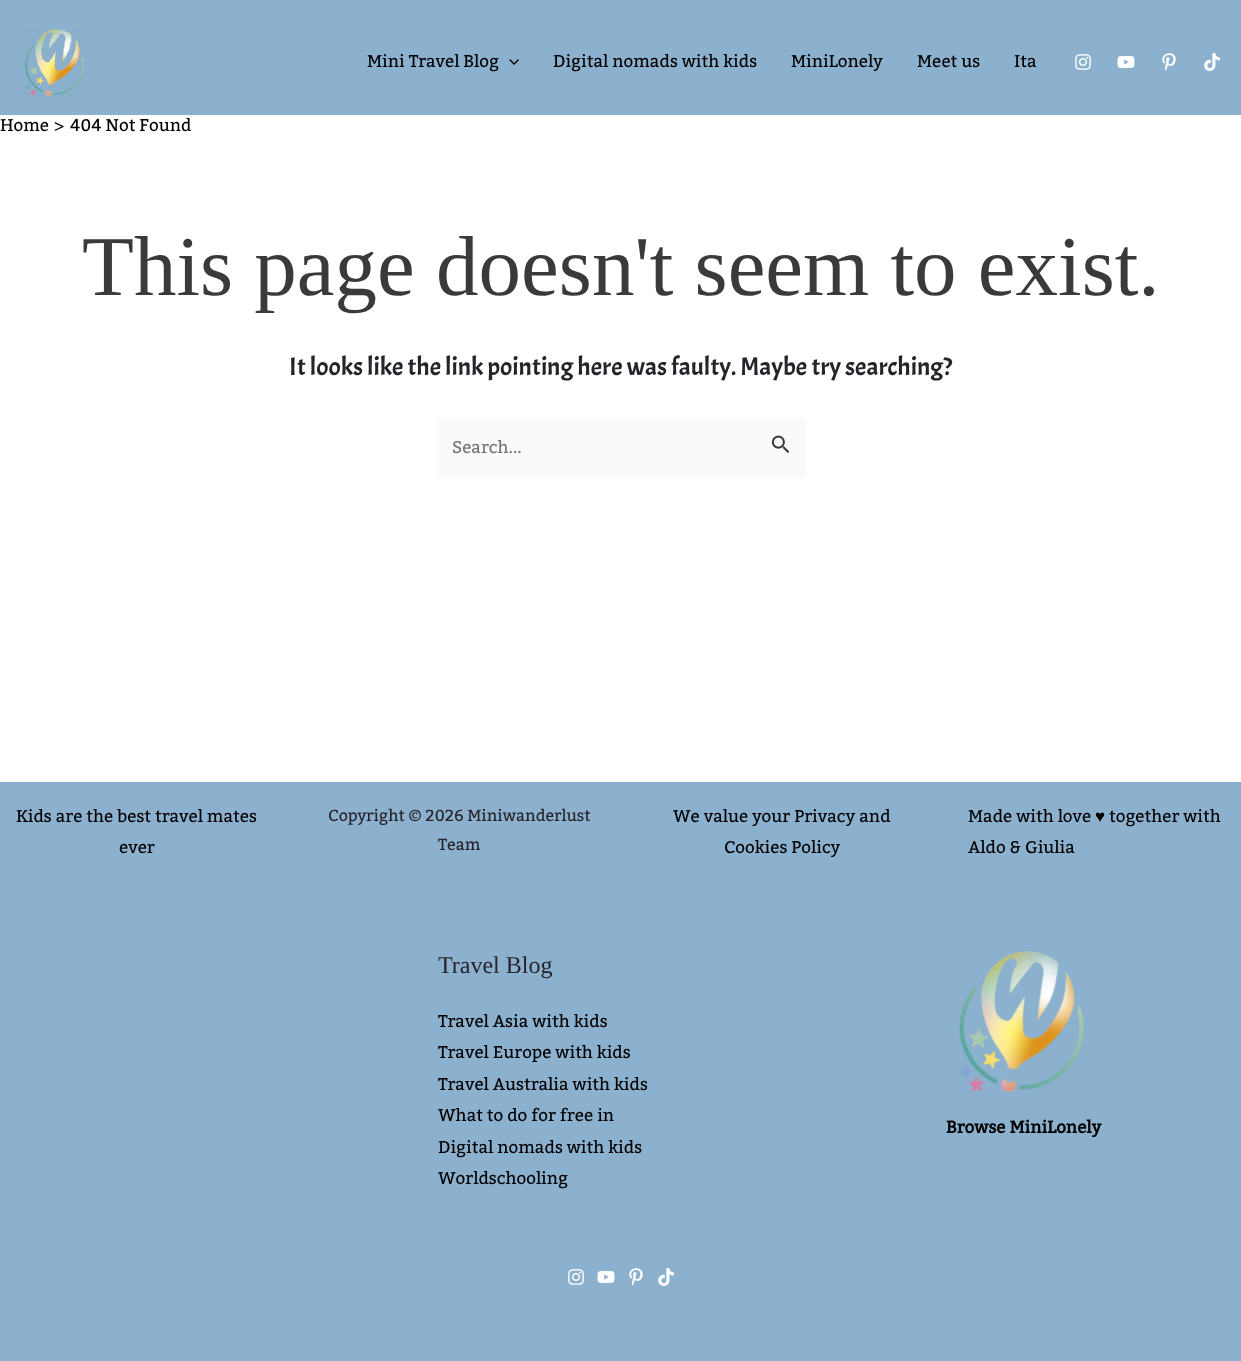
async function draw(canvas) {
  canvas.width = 1241
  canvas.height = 1361
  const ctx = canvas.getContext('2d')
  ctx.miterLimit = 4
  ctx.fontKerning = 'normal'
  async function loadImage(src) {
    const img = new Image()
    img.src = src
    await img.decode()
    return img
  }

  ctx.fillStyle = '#fff'
  ctx.fillRect(0, 0, 1241, 1361)
  ctx.fillStyle = '#8bb1ce'
  ctx.fillRect(0, 0, 1241, 115)
  ctx.drawImage(await loadImage('image0.png'), 24, 29, 61, 67)
  ctx.font = '17px Kadwa'
  ctx.fillStyle = '#000'
  ctx.fillText('Mini Travel Blog', 367, 67)
  ctx.drawImage(await loadImage('image1.png'), 509, 59, 10, 6)
  ctx.fillText('Digital nomads with kids', 553, 67)
  ctx.fillText('MiniLonely', 791, 67)
  ctx.fillText('Meet us', 917, 67)
  ctx.fillText('Ita', 1014, 67)
  ctx.drawImage(await loadImage('image2.png'), 1075, 54, 16, 16)
  ctx.drawImage(await loadImage('image3.png'), 1117, 56, 18, 12)
  ctx.drawImage(await loadImage('image4.png'), 1162, 53, 14, 18)
  ctx.drawImage(await loadImage('image5.png'), 1204, 53, 16, 18)
  ctx.fillText('Home', 0, 131)
  ctx.fillText('>', 54, 131)
  ctx.fillText('404 Not Found', 70, 131)
  ctx.font = '85px Liberation Serif'
  ctx.fillStyle = '#3a3a3a'
  ctx.fillText('This page doesn\'t seem to exist.', 82, 295)
  ctx.font = '25.5px Acme'
  ctx.fillStyle = '#28232a'
  ctx.fillText('It looks like the link pointing here was faulty. Maybe try searching?', 289, 375)
  ctx.fillStyle = '#fafafa'
  ctx.beginPath()
  ctx.roundRect(436, 418, 370, 60, 2)
  ctx.fill()
  ctx.font = '17px Kadwa'
  ctx.fillStyle = '#757575'
  ctx.fillText('Search...', 452, 453)
  ctx.drawImage(await loadImage('image6.png'), 771, 435, 18, 18)
  ctx.fillStyle = '#8bb1ce'
  ctx.fillRect(0, 782, 1241, 579)
  ctx.fillStyle = '#000'
  ctx.fillText('Kids are the best travel mates', 16, 822)
  ctx.fillText('ever', 119, 853)
  ctx.font = '16px Kadwa'
  ctx.fillStyle = '#28232a'
  ctx.fillText('Copyright © 2026 Miniwanderlust', 328, 821)
  ctx.fillText('Team', 438, 850)
  ctx.font = '17px Kadwa'
  ctx.fillStyle = '#000'
  ctx.fillText('We value your Privacy and', 673, 822)
  ctx.fillText('Cookies Policy', 724, 853)
  ctx.fillText('Made with love', 968, 822)
  ctx.font = '17px Liberation Serif'
  ctx.fillText('♥︎', 1095, 822)
  ctx.font = '17px Kadwa'
  ctx.fillText('together with', 1109, 822)
  ctx.fillText('Aldo & Giulia', 968, 853)
  ctx.font = '24px Liberation Serif'
  ctx.fillStyle = '#28232a'
  ctx.fillText('Travel Blog', 438, 973)
  ctx.font = '17px Kadwa'
  ctx.fillStyle = '#000'
  ctx.fillText('Travel Asia with kids', 438, 1027)
  ctx.fillText('Travel Europe with kids', 438, 1058)
  ctx.fillText('Travel Australia with kids', 438, 1090)
  ctx.fillText('What to do for free in', 438, 1121)
  ctx.fillText('Digital nomads with kids', 438, 1153)
  ctx.fillText('Worldschooling', 438, 1184)
  ctx.drawImage(await loadImage('image7.png'), 959, 951, 125, 141)
  ctx.font = 'bold 17px Kadwa'
  ctx.fillText('Browse MiniLonely', 946, 1133)
  ctx.drawImage(await loadImage('image2.png'), 568, 1269, 16, 16)
  ctx.drawImage(await loadImage('image3.png'), 597, 1271, 18, 12)
  ctx.drawImage(await loadImage('image4.png'), 629, 1268, 14, 18)
  ctx.drawImage(await loadImage('image5.png'), 658, 1268, 16, 18)
}

draw(document.querySelector('canvas'))
